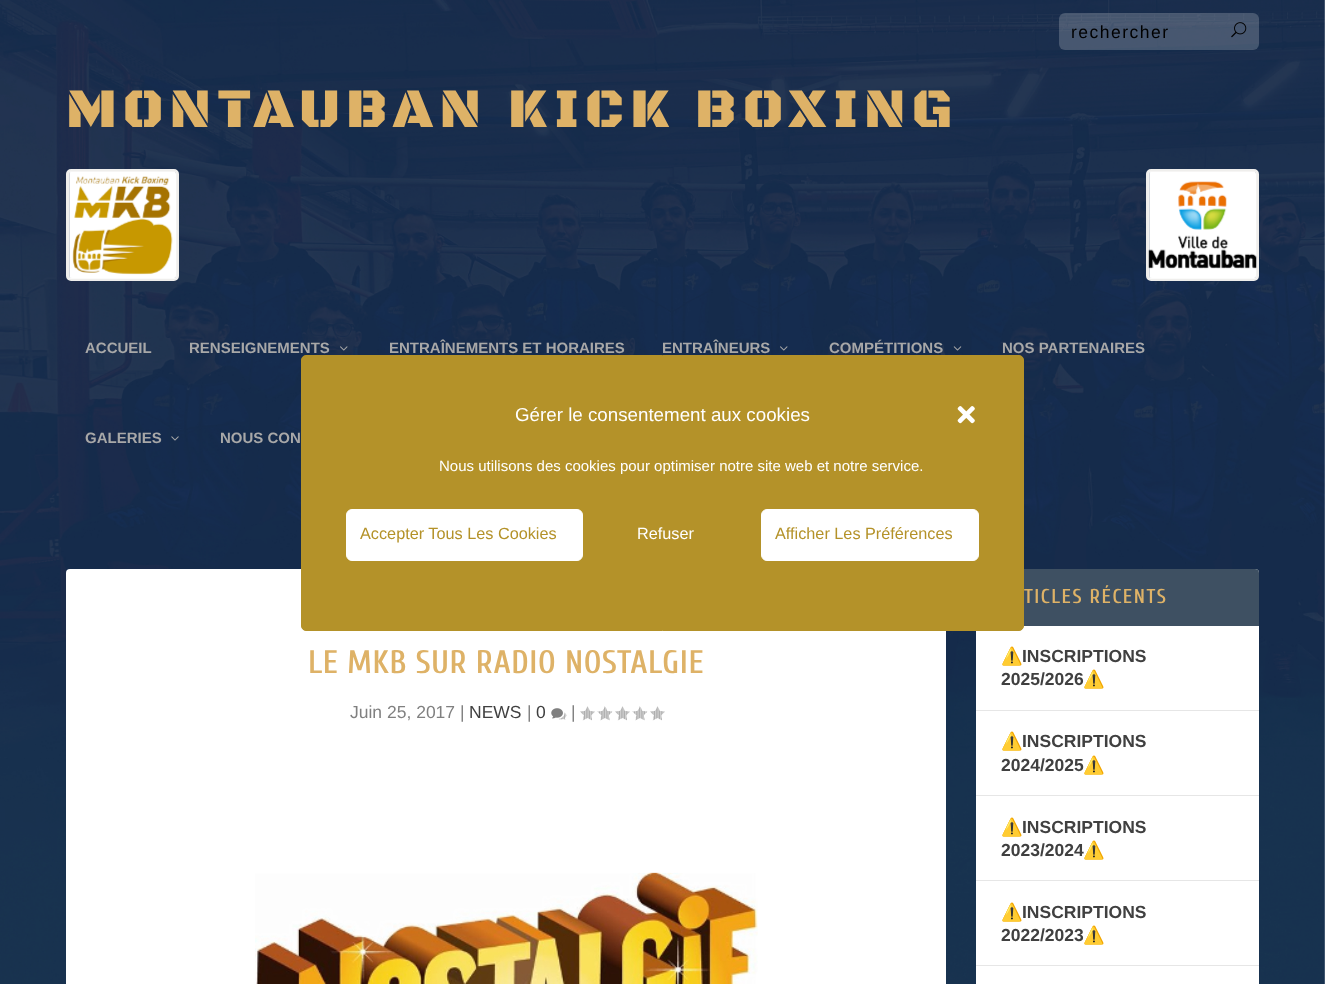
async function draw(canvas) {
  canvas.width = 1325
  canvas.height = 984
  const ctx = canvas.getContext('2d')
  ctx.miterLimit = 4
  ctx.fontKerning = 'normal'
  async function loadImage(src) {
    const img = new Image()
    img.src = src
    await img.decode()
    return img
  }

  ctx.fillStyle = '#fff'
  ctx.fillRect(0, 0, 1325, 984)
  ctx.drawImage(await loadImage('image0.png'), 0, 0, 1325, 984)
  ctx.fillStyle = '#ffffff33'
  ctx.beginPath()
  ctx.roundRect(1059, 13, 200, 37, 6)
  ctx.fill()
  ctx.letterSpacing = '1.5px'
  ctx.font = '17.5px Liberation Sans'
  ctx.fillStyle = '#000'
  ctx.fillText('rechercher', 1071, 38)
  ctx.drawImage(await loadImage('image1.png'), 1231, 22, 16, 16)
  ctx.letterSpacing = '6.25px'
  ctx.font = '900 56.25px Black Ops One'
  ctx.fillStyle = '#deb267'
  ctx.fillText('MONTAUBAN KICK BOXING', 66, 127)
  ctx.beginPath()
  ctx.roundRect(67.5, 170.5, 110, 109, 3.5)
  ctx.strokeStyle = '#efeeec'
  ctx.lineWidth = 3
  ctx.stroke()
  ctx.drawImage(await loadImage('image2.png'), 69, 171, 108, 108)
  ctx.beginPath()
  ctx.roundRect(1147.5, 170.5, 110, 109, 3.5)
  ctx.stroke()
  ctx.drawImage(await loadImage('image3.png'), 1148, 171, 109, 108)
  ctx.letterSpacing = '0px'
  ctx.font = 'bold 15px Liberation Sans'
  ctx.fillStyle = '#a8a8a8'
  ctx.fillText('ACCUEIL', 85, 353)
  ctx.fillText('RENSEIGNEMENTS', 189, 353)
  ctx.drawImage(await loadImage('image4.png'), 340, 346, 8, 5)
  ctx.fillText('ENTRAÎNEMENTS ET HORAIRES', 389, 353)
  ctx.fillText('ENTRAÎNEURS', 662, 353)
  ctx.drawImage(await loadImage('image5.png'), 780, 346, 8, 5)
  ctx.fillText('COMPÉTITIONS', 829, 353)
  ctx.drawImage(await loadImage('image6.png'), 953, 346, 9, 5)
  ctx.fillText('NOS PARTENAIRES', 1002, 353)
  ctx.fillText('GALERIES', 85, 443)
  ctx.drawImage(await loadImage('image7.png'), 171, 436, 8, 5)
  ctx.fillText('NOUS CON', 220, 443)
  ctx.fillStyle = '#fff'
  ctx.beginPath()
  ctx.roundRect(66, 569, 880, 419, 4)
  ctx.fill()
  ctx.letterSpacing = '0.6px'
  ctx.font = '600 32.5px Cuprum'
  ctx.fillStyle = '#deb267'
  ctx.fillText('LE MKB SUR RADIO NOSTALGIE', 308, 673)
  ctx.letterSpacing = '0px'
  ctx.font = '17.5px Liberation Sans'
  ctx.fillStyle = '#808080'
  ctx.fillText('Juin 25, 2017 |', 350, 718)
  ctx.fillStyle = '#404040'
  ctx.fillText('NEWS', 469, 718)
  ctx.fillStyle = '#808080'
  ctx.fillText('|', 527, 718)
  ctx.fillStyle = '#404040'
  ctx.fillText('0', 536, 718)
  ctx.drawImage(await loadImage('image8.png'), 551, 708, 16, 12)
  ctx.fillStyle = '#808080'
  ctx.fillText('|', 571, 718)
  ctx.drawImage(await loadImage('image9.png'), 580, 706, 15, 15)
  ctx.drawImage(await loadImage('image10.png'), 597, 706, 16, 15)
  ctx.drawImage(await loadImage('image9.png'), 615, 706, 15, 15)
  ctx.drawImage(await loadImage('image10.png'), 632, 706, 16, 15)
  ctx.drawImage(await loadImage('image9.png'), 650, 706, 15, 15)
  ctx.drawImage(await loadImage('image11.png'), 255, 872, 503, 112)
  ctx.fillStyle = '#fff'
  ctx.beginPath()
  ctx.roundRect(976, 569, 283, 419, 4)
  ctx.fill()
  ctx.fillStyle = '#3e5062'
  ctx.beginPath()
  ctx.roundRect(976, 569, 283, 57, [4, 4, 0, 0])
  ctx.fill()
  ctx.letterSpacing = '1.5px'
  ctx.font = '600 20px Cuprum'
  ctx.fillStyle = '#deb267'
  ctx.fillText('TICLES RÉCENTS', 1024, 603)
  ctx.fillStyle = '#e6e6e6'
  ctx.fillRect(976, 710, 283, 1)
  ctx.letterSpacing = '0px'
  ctx.font = 'bold 17.5px Noto Color Emoji'
  ctx.fillStyle = '#404040'
  ctx.fillText('⚠️', 1001, 662)
  ctx.font = 'bold 17.5px Liberation Sans'
  ctx.fillText('INSCRIPTIONS', 1022, 662)
  ctx.fillText('2025/2026', 1001, 685)
  ctx.font = 'bold 17.5px Noto Color Emoji'
  ctx.fillText('⚠️', 1083, 685)
  ctx.fillStyle = '#e6e6e6'
  ctx.fillRect(976, 795, 283, 1)
  ctx.fillStyle = '#404040'
  ctx.fillText('⚠️', 1001, 747)
  ctx.font = 'bold 17.5px Liberation Sans'
  ctx.fillText('INSCRIPTIONS', 1022, 747)
  ctx.fillText('2024/2025', 1001, 771)
  ctx.font = 'bold 17.5px Noto Color Emoji'
  ctx.fillText('⚠️', 1083, 771)
  ctx.fillStyle = '#e6e6e6'
  ctx.fillRect(976, 880, 283, 1)
  ctx.fillStyle = '#404040'
  ctx.fillText('⚠️', 1001, 833)
  ctx.font = 'bold 17.5px Liberation Sans'
  ctx.fillText('INSCRIPTIONS', 1022, 833)
  ctx.fillText('2023/2024', 1001, 856)
  ctx.font = 'bold 17.5px Noto Color Emoji'
  ctx.fillText('⚠️', 1083, 856)
  ctx.fillStyle = '#e6e6e6'
  ctx.fillRect(976, 965, 283, 1)
  ctx.fillStyle = '#404040'
  ctx.fillText('⚠️', 1001, 918)
  ctx.font = 'bold 17.5px Liberation Sans'
  ctx.fillText('INSCRIPTIONS', 1022, 918)
  ctx.fillText('2022/2023', 1001, 941)
  ctx.font = 'bold 17.5px Noto Color Emoji'
  ctx.fillText('⚠️', 1083, 941)
  ctx.fillStyle = '#b49229'
  ctx.beginPath()
  ctx.roundRect(301.5, 355.5, 722, 275, 4.5)
  ctx.fill()
  ctx.strokeStyle = '#b49229'
  ctx.lineWidth = 1
  ctx.stroke()
  ctx.font = '18.75px Liberation Sans'
  ctx.fillStyle = '#fff'
  ctx.fillText('Gérer le consentement aux cookies', 515, 421)
  ctx.drawImage(await loadImage('image12.png'), 957, 406, 18, 18)
  ctx.font = '15px Liberation Sans'
  ctx.fillText('Nous utilisons des cookies pour optimiser notre site web et notre service.', 439, 471)
  ctx.beginPath()
  ctx.roundRect(346.5, 509.5, 236, 51, 5.5)
  ctx.fill()
  ctx.strokeStyle = '#fff'
  ctx.stroke()
  ctx.font = '16.25px Liberation Sans'
  ctx.fillStyle = '#b49229'
  ctx.fillText('Accepter Tous Les Cookies', 360, 539)
  ctx.fillStyle = '#fff'
  ctx.fillText('Refuser', 637, 539)
  ctx.beginPath()
  ctx.roundRect(761.5, 509.5, 217, 51, 5.5)
  ctx.fill()
  ctx.stroke()
  ctx.fillStyle = '#b49229'
  ctx.fillText('Afficher Les Préférences', 775, 539)
}

draw(document.querySelector('canvas'))
